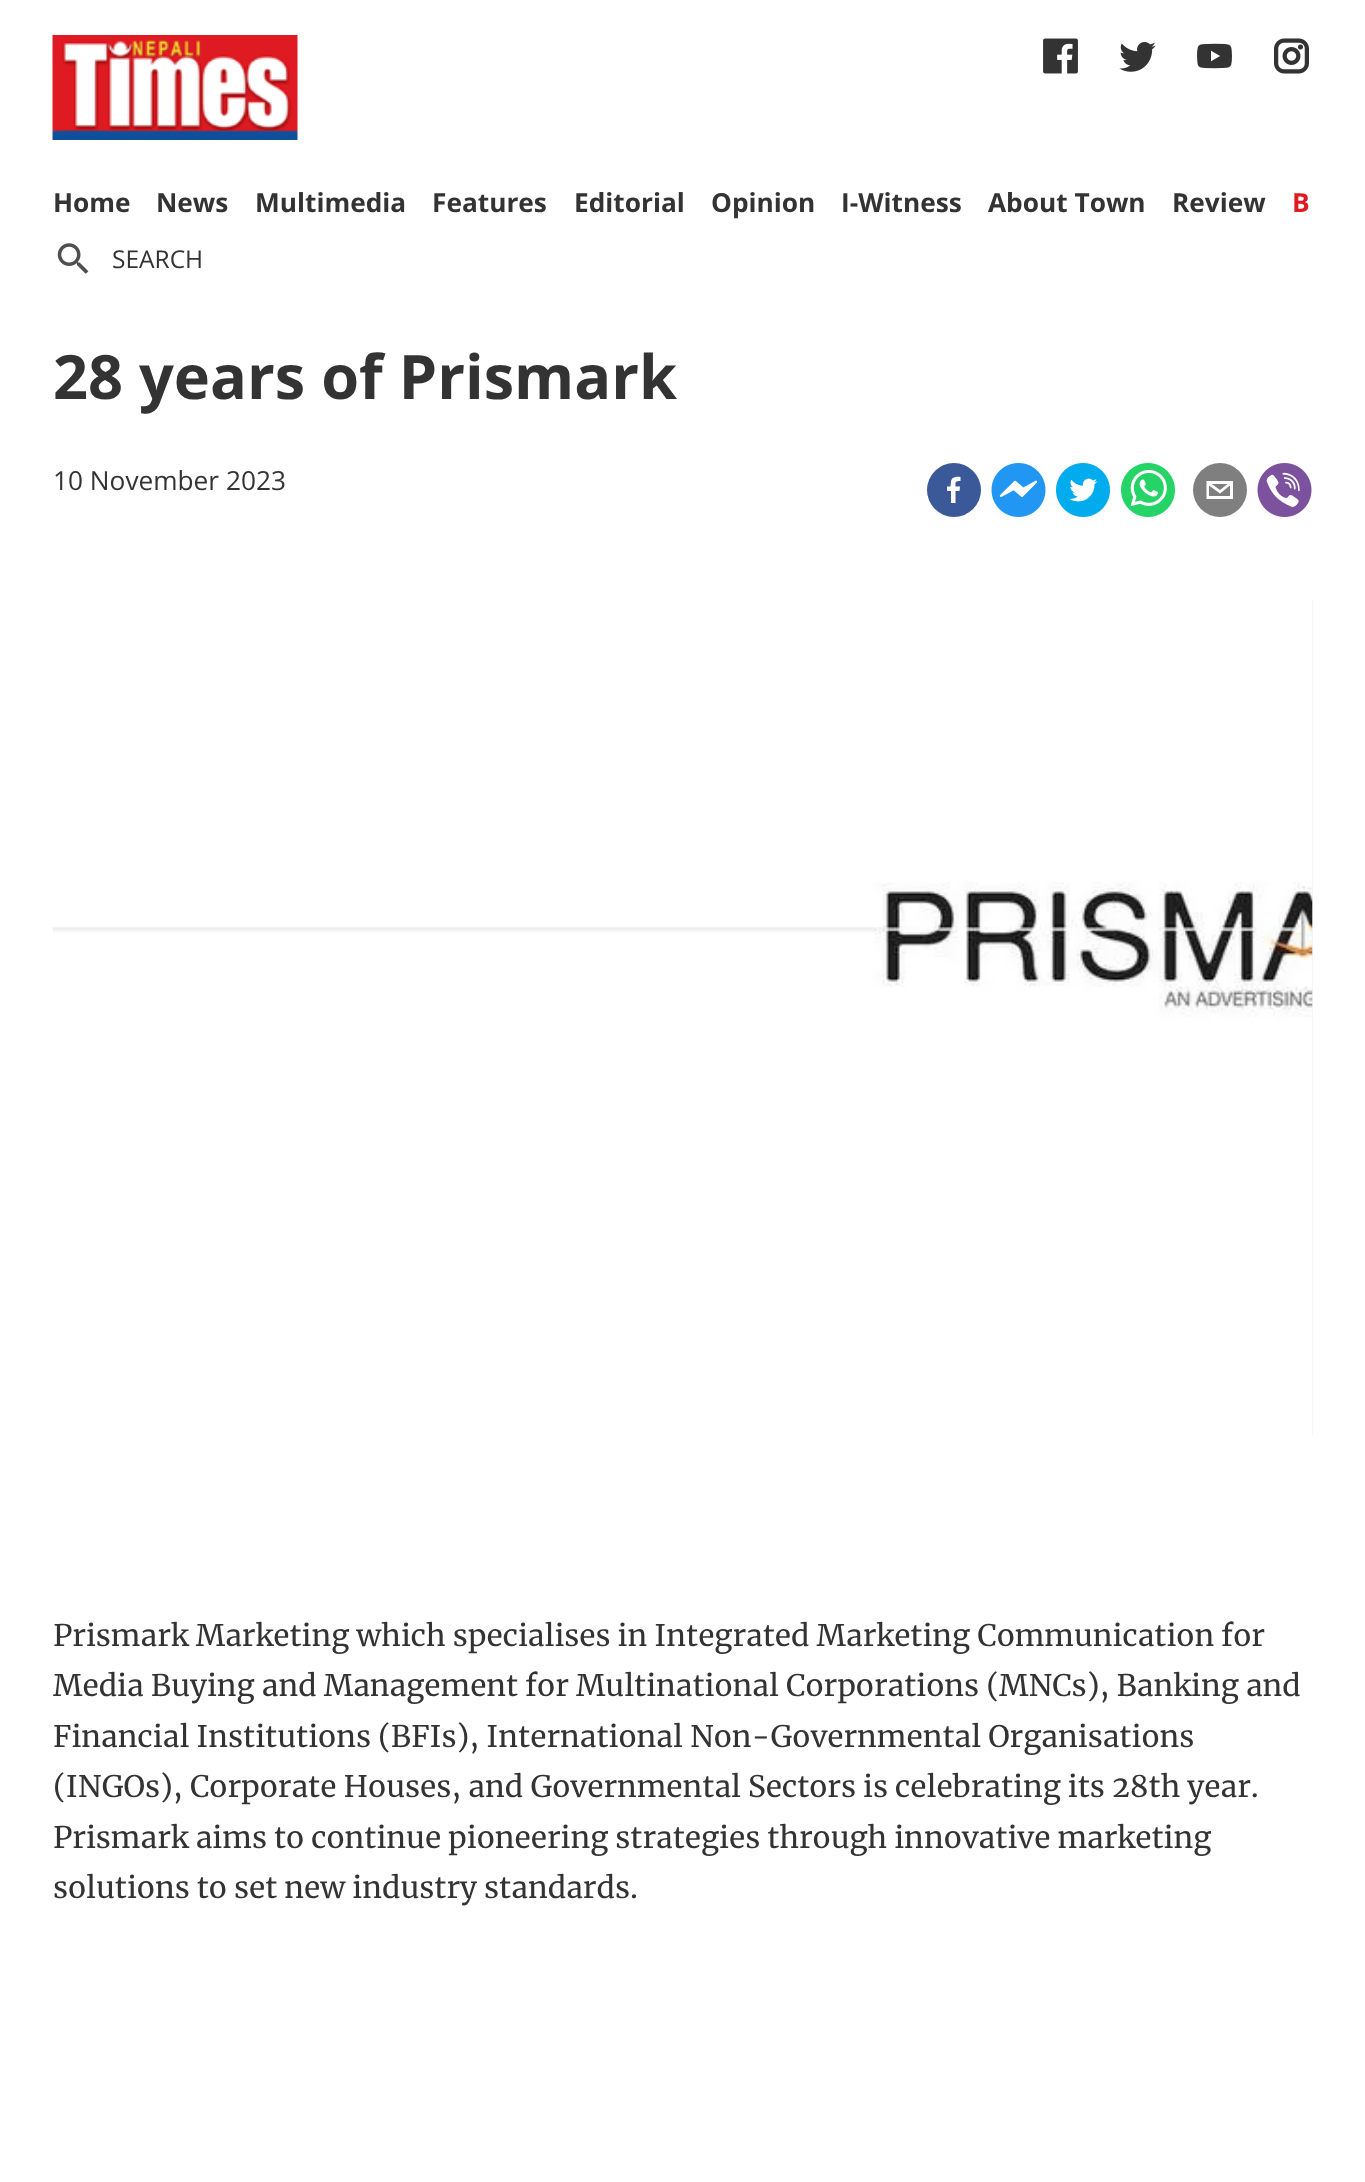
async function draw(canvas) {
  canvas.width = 1365
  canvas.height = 2182
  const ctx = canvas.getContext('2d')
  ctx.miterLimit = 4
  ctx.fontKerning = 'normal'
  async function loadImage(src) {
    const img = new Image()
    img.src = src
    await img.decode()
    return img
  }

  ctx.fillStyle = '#fff'
  ctx.fillRect(0, 0, 1365, 2182)
  ctx.drawImage(await loadImage('image0.png'), 52, 35, 246, 105)
  ctx.drawImage(await loadImage('image1.png'), 1043, 38, 35, 36)
  ctx.drawImage(await loadImage('image2.png'), 1119, 42, 37, 30)
  ctx.drawImage(await loadImage('image3.png'), 1197, 43, 35, 26)
  ctx.drawImage(await loadImage('image4.png'), 1273, 38, 37, 36)
  ctx.font = 'bold 26.25px Open Sans'
  ctx.fillStyle = '#333'
  ctx.fillText('Home', 53, 212)
  ctx.fillText('News', 156, 212)
  ctx.fillText('Multimedia', 255, 212)
  ctx.fillText('Features', 432, 212)
  ctx.fillText('Editorial', 574, 212)
  ctx.fillText('Opinion', 711, 212)
  ctx.fillText('I-Witness', 841, 212)
  ctx.fillText('About Town', 988, 212)
  ctx.fillText('Review', 1172, 212)
  ctx.fillStyle = '#df1a22'
  ctx.fillText('B', 1292, 212)
  ctx.drawImage(await loadImage('image5.png'), 57, 243, 32, 31)
  ctx.font = '24.5px Open Sans'
  ctx.fillStyle = '#333'
  ctx.fillText('SEARCH', 112, 268)
  ctx.font = 'bold 61.25px Open Sans'
  ctx.fillText('28 years of Prismark', 53, 399)
  ctx.font = '26.25px Open Sans'
  ctx.fillText('10 November 2023', 53, 490)
  ctx.fillStyle = '#3b5998'
  ctx.beginPath()
  ctx.arc(954, 490, 27, 0, 2 * Math.PI)
  ctx.fill()
  ctx.fillStyle = '#fff'
  ctx.beginPath()
  ctx.moveTo(955.5, 503)
  ctx.lineTo(955.5, 491)
  ctx.lineTo(959.5, 491)
  ctx.lineTo(960, 486.5)
  ctx.lineTo(955.5, 486.5)
  ctx.bezierCurveTo(955.5, 481.5, 955, 481, 960.5, 481)
  ctx.lineTo(960.5, 477)
  ctx.bezierCurveTo(956.5, 476.5, 951.5, 477, 951, 481.5)
  ctx.lineTo(950.5, 486.5)
  ctx.lineTo(947, 486.5)
  ctx.lineTo(947, 491)
  ctx.lineTo(951, 491)
  ctx.lineTo(951, 503)
  ctx.closePath()
  ctx.fill()
  ctx.drawImage(await loadImage('image6.png'), 991, 463, 55, 54)
  ctx.drawImage(await loadImage('image7.png'), 1056, 463, 54, 54)
  ctx.drawImage(await loadImage('image8.png'), 1121, 463, 54, 54)
  ctx.fillStyle = '#7f7f7f'
  ctx.beginPath()
  ctx.arc(1220, 490, 27, 0, 2 * Math.PI)
  ctx.fill()
  ctx.fillStyle = '#fff'
  ctx.beginPath()
  ctx.moveTo(1206.5, 481)
  ctx.lineTo(1206.5, 499)
  ctx.lineTo(1233, 499)
  ctx.lineTo(1233, 481)
  ctx.closePath()
  ctx.moveTo(1227.5, 484)
  ctx.lineTo(1220, 490)
  ctx.lineTo(1212, 484)
  ctx.closePath()
  ctx.moveTo(1209, 496)
  ctx.lineTo(1209, 485.5)
  ctx.lineTo(1220, 493.5)
  ctx.lineTo(1230, 485.5)
  ctx.lineTo(1230, 496)
  ctx.closePath()
  ctx.fill()
  ctx.drawImage(await loadImage('image9.png'), 1257, 463, 55, 54)
  ctx.fillStyle = '#f3f3f3'
  ctx.fillRect(1312, 599, 1, 836)
  ctx.drawImage(await loadImage('image10.png'), 52, 599, 1261, 836)
  ctx.font = '29.75px Merriweather'
  ctx.fillStyle = '#333'
  ctx.fillText('Prismark Marketing which specialises in Integrated Marketing Communication for', 53, 1646)
  ctx.fillText('Media Buying and Management for Multinational Corporations (MNCs), Banking and', 53, 1696)
  ctx.fillText('Financial Institutions (BFIs), International Non-Governmental Organisations', 53, 1747)
  ctx.fillText('(INGOs), Corporate Houses, and Governmental Sectors is celebrating its 28th year.', 53, 1797)
  ctx.fillText('Prismark aims to continue pioneering strategies through innovative marketing', 53, 1848)
  ctx.fillText('solutions to set new industry standards.', 53, 1898)
}

draw(document.querySelector('canvas'))
